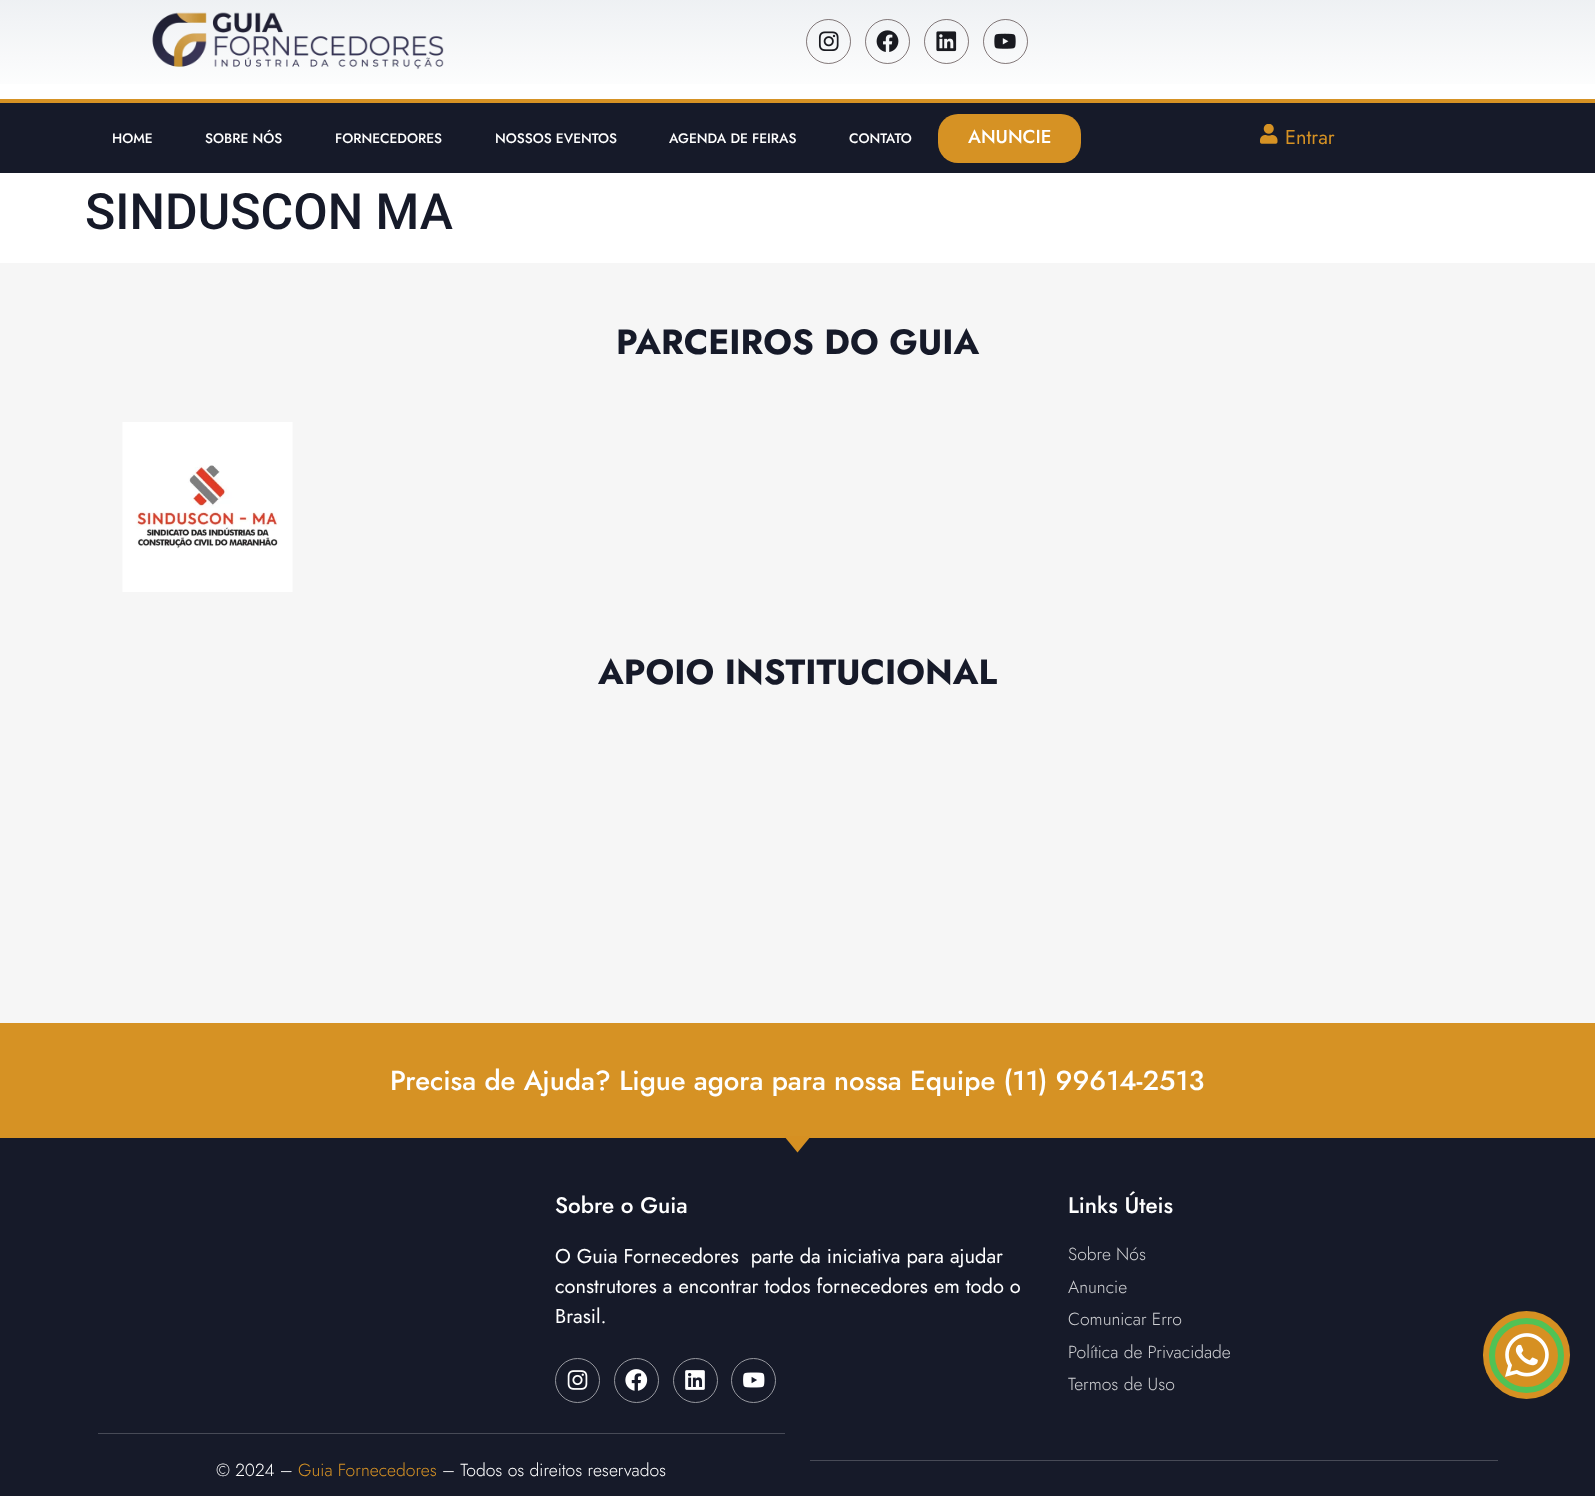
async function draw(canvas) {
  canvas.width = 1595
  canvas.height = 1496
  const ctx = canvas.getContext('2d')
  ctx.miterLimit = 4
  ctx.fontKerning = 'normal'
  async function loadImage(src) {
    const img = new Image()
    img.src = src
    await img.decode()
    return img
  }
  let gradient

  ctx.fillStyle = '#fff'
  ctx.fillRect(0, 0, 1595, 1496)
  gradient = ctx.createLinearGradient(798, -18, 798, 99)
  gradient.addColorStop(0, '#ebeef1')
  gradient.addColorStop(1, '#fff')
  ctx.fillStyle = gradient
  ctx.fillRect(0, 0, 1595, 84)
  ctx.drawImage(await loadImage('image0.png'), 152, 12, 292, 58)
  ctx.beginPath()
  ctx.arc(828.5, 41.5, 22, 0, 2 * Math.PI)
  ctx.strokeStyle = '#220e0e8c'
  ctx.stroke()
  ctx.drawImage(await loadImage('image1.png'), 818, 31, 21, 20)
  ctx.beginPath()
  ctx.arc(887.5, 41.5, 22, 0, 2 * Math.PI)
  ctx.stroke()
  ctx.drawImage(await loadImage('image2.png'), 876, 30, 23, 22)
  ctx.beginPath()
  ctx.arc(946.5, 41.5, 22, 0, 2 * Math.PI)
  ctx.stroke()
  ctx.drawImage(await loadImage('image3.png'), 936, 31, 21, 21)
  ctx.beginPath()
  ctx.arc(1005.5, 41.5, 22, 0, 2 * Math.PI)
  ctx.stroke()
  ctx.drawImage(await loadImage('image4.png'), 994, 33, 22, 16)
  ctx.fillStyle = '#161a29'
  ctx.fillRect(0, 103, 1595, 70)
  ctx.fillStyle = '#d69224'
  ctx.fillRect(0, 99, 1595, 4)
  ctx.font = '500 13.75px Jost'
  ctx.fillStyle = '#fff'
  ctx.fillText('HOME', 112, 143)
  ctx.fillText('SOBRE NÓS', 205, 143)
  ctx.fillText('FORNECEDORES', 335, 143)
  ctx.fillText('NOSSOS EVENTOS', 495, 143)
  ctx.fillText('AGENDA DE FEIRAS', 669, 143)
  ctx.fillText('CONTATO', 849, 143)
  ctx.fillStyle = '#d69224'
  ctx.beginPath()
  ctx.roundRect(938, 114, 143, 49, 20)
  ctx.fill()
  ctx.font = '500 18.75px Jost'
  ctx.fillStyle = '#fff'
  ctx.fillText('ANUNCIE', 968, 143)
  ctx.drawImage(await loadImage('image5.png'), 1260, 124, 18, 20)
  ctx.font = '20px Jost'
  ctx.fillStyle = '#d69224'
  ctx.fillText('Entrar', 1285, 144)
  ctx.font = '500 50px Roboto'
  ctx.fillStyle = '#161a29'
  ctx.fillText('SINDUSCON MA', 85, 229)
  ctx.fillStyle = '#f6f6f6'
  ctx.fillRect(0, 263, 1595, 760)
  ctx.font = 'bold 35px Jost'
  ctx.fillStyle = '#161a29'
  ctx.fillText('PARCEIROS DO GUIA', 616, 354)
  ctx.drawImage(await loadImage('image6.png'), 122, 422, 171, 170)
  ctx.fillText('APOIO INSTITUCIONAL', 598, 684)
  ctx.fillStyle = '#d69224'
  ctx.fillRect(0, 1023, 1595, 115)
  ctx.font = '500 27.5px Jost'
  ctx.fillStyle = '#fff'
  ctx.fillText('Precisa de Ajuda? Ligue agora para nossa Equipe (11) 99614-2513', 390, 1090)
  ctx.fillStyle = '#161a29'
  ctx.fillRect(0, 1138, 1595, 358)
  ctx.fillStyle = '#d69022'
  ctx.beginPath()
  ctx.moveTo(797.5, 1152.5)
  ctx.lineTo(784, 1136)
  ctx.lineTo(811, 1136)
  ctx.closePath()
  ctx.fill()
  ctx.font = '500 22.5px Jost'
  ctx.fillStyle = '#fff'
  ctx.fillText('Sobre o Guia', 555, 1213)
  ctx.font = '20px Jost'
  ctx.fillText('O Guia Fornecedores  parte da iniciativa para ajudar', 555, 1263)
  ctx.fillText('construtores a encontrar todos fornecedores em todo o', 555, 1293)
  ctx.fillText('Brasil.', 555, 1323)
  ctx.beginPath()
  ctx.arc(577.5, 1380.5, 22, 0, 2 * Math.PI)
  ctx.strokeStyle = '#96989f'
  ctx.stroke()
  ctx.drawImage(await loadImage('image7.png'), 567, 1370, 21, 20)
  ctx.beginPath()
  ctx.arc(636.5, 1380.5, 22, 0, 2 * Math.PI)
  ctx.stroke()
  ctx.drawImage(await loadImage('image8.png'), 625, 1369, 23, 22)
  ctx.beginPath()
  ctx.arc(695.5, 1380.5, 22, 0, 2 * Math.PI)
  ctx.stroke()
  ctx.drawImage(await loadImage('image9.png'), 685, 1370, 20, 20)
  ctx.beginPath()
  ctx.arc(753.5, 1380.5, 22, 0, 2 * Math.PI)
  ctx.stroke()
  ctx.drawImage(await loadImage('image10.png'), 743, 1372, 22, 16)
  ctx.font = '500 22.5px Jost'
  ctx.fillText('Links Úteis', 1068, 1213)
  ctx.font = '300 17.5px Jost'
  ctx.fillStyle = '#cecfd2'
  ctx.fillText('Sobre Nós', 1068, 1260)
  ctx.fillText('Anuncie', 1068, 1293)
  ctx.fillText('Comunicar Erro', 1068, 1325)
  ctx.fillText('Política de Privacidade', 1068, 1358)
  ctx.fillText('Termos de Uso', 1068, 1390)
  ctx.fillStyle = '#d69022'
  ctx.beginPath()
  ctx.roundRect(1483, 1311, 87, 88, 43.5)
  ctx.fill()
  ctx.drawImage(await loadImage('image11.png'), 1505, 1333, 44, 44)
  ctx.beginPath()
  ctx.arc(1526.5, 1355.5, 34.5, 0, 2 * Math.PI)
  ctx.strokeStyle = '#51c255'
  ctx.lineWidth = 6
  ctx.stroke()
  ctx.fillStyle = '#474a56'
  ctx.fillRect(810, 1460, 688, 1)
  ctx.fillRect(98, 1433, 687, 1)
  ctx.fillStyle = '#fff'
  ctx.fillText('© 2024 –', 216, 1476)
  ctx.fillStyle = '#d69224'
  ctx.fillText('Guia Fornecedores', 298, 1476)
  ctx.fillStyle = '#fff'
  ctx.fillText('– Todos os direitos reservados', 442, 1476)
}

draw(document.querySelector('canvas'))
